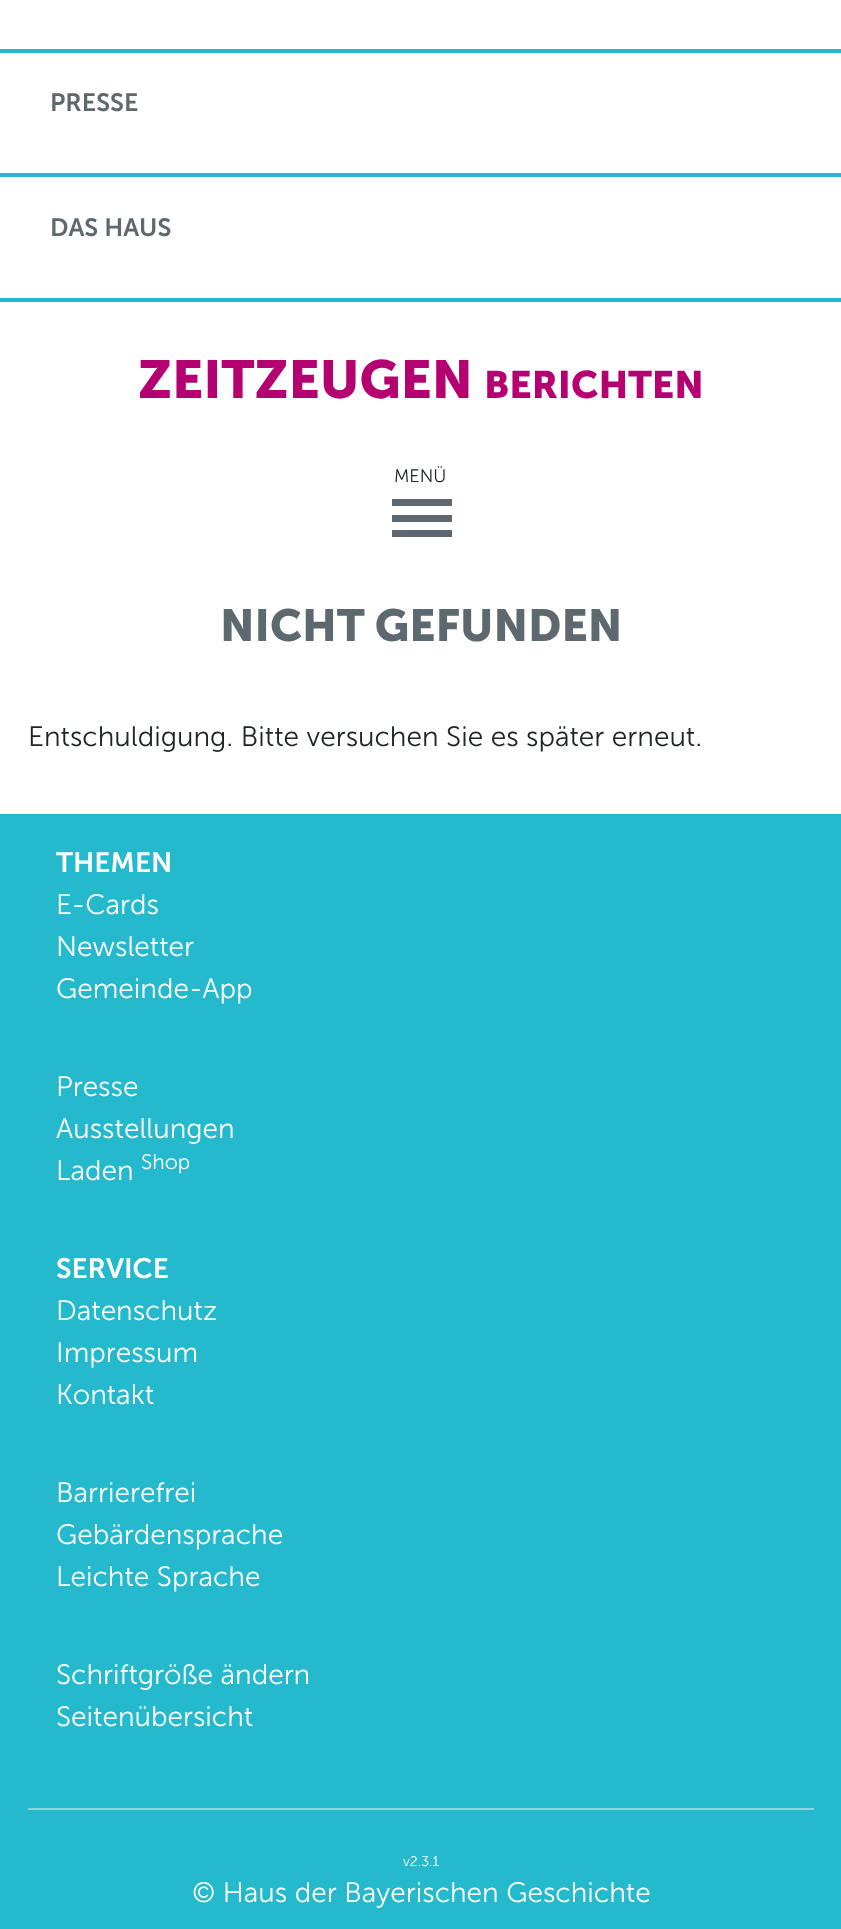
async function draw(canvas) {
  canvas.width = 841
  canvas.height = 1929
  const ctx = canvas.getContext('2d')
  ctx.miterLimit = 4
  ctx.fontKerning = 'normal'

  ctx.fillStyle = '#fff'
  ctx.fillRect(0, 0, 841, 1929)
  ctx.fillStyle = '#25b9cd'
  ctx.fillRect(0, 49, 841, 4)
  ctx.fillRect(0, 173, 841, 4)
  ctx.font = '600 25px Museo Sans'
  ctx.fillStyle = '#5d696e'
  ctx.fillText('PRESSE', 50, 111)
  ctx.fillStyle = '#25b9cd'
  ctx.fillRect(0, 298, 841, 4)
  ctx.fillStyle = '#5d696e'
  ctx.fillText('DAS HAUS', 50, 236)
  ctx.font = 'bold 53.25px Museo'
  ctx.fillStyle = '#b40071'
  ctx.fillText('ZEITZEUGEN', 138, 398)
  ctx.font = 'bold 38.25px Museo'
  ctx.fillText('BERICHTEN', 484, 398)
  ctx.font = '300 18px Museo'
  ctx.fillStyle = '#212529'
  ctx.fillText('MENÜ', 394, 482)
  ctx.fillStyle = '#5c676f'
  ctx.fillRect(392, 499, 60, 7)
  ctx.fillRect(392, 515, 60, 7)
  ctx.fillRect(392, 530, 60, 7)
  ctx.font = 'bold 44.75px Museo'
  ctx.fillStyle = '#5d696e'
  ctx.fillText('NICHT GEFUNDEN', 220, 641)
  ctx.font = '300 28px Museo'
  ctx.fillStyle = '#212529'
  ctx.fillText('Entschuldigung. Bitte versuchen Sie es später erneut.', 28, 746)
  ctx.fillStyle = '#25b9cd'
  ctx.fillRect(0, 814, 841, 1115)
  ctx.font = '600 28px Museo Sans'
  ctx.fillStyle = '#fff'
  ctx.fillText('THEMEN', 56, 872)
  ctx.font = '300 28px Museo'
  ctx.fillText('E-Cards', 56, 914)
  ctx.fillText('Newsletter', 56, 956)
  ctx.fillText('Gemeinde-App', 56, 998)
  ctx.fillText('Presse', 56, 1096)
  ctx.fillText('Ausstellungen', 56, 1138)
  ctx.fillText('Laden', 56, 1180)
  ctx.font = '300 21px Museo'
  ctx.fillText('Shop', 141, 1169)
  ctx.font = '600 28px Museo Sans'
  ctx.fillText('SERVICE', 56, 1278)
  ctx.font = '300 28px Museo'
  ctx.fillText('Datenschutz', 56, 1320)
  ctx.fillText('Impressum', 56, 1362)
  ctx.fillText('Kontakt', 56, 1404)
  ctx.fillText('Barrierefrei', 56, 1502)
  ctx.fillText('Gebärdensprache', 56, 1544)
  ctx.fillText('Leichte Sprache', 56, 1586)
  ctx.fillText('Schriftgröße ändern', 56, 1684)
  ctx.fillText('Seitenübersicht', 56, 1726)
  ctx.fillStyle = '#8ad4de'
  ctx.fillRect(28, 1808, 786, 2)
  ctx.font = '300 14px Museo'
  ctx.fillStyle = '#fff'
  ctx.fillText('v2.3.1', 403, 1866)
  ctx.font = '300 28px Museo'
  ctx.fillText('© Haus der Bayerischen Geschichte', 192, 1902)
}

draw(document.querySelector('canvas'))
